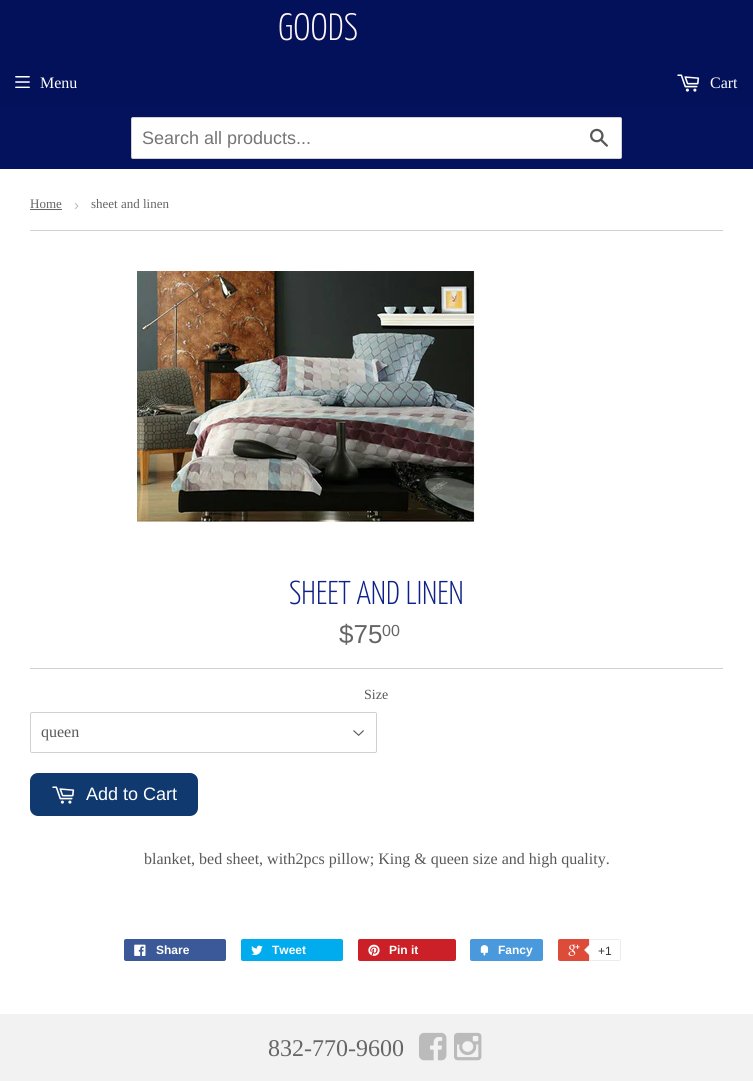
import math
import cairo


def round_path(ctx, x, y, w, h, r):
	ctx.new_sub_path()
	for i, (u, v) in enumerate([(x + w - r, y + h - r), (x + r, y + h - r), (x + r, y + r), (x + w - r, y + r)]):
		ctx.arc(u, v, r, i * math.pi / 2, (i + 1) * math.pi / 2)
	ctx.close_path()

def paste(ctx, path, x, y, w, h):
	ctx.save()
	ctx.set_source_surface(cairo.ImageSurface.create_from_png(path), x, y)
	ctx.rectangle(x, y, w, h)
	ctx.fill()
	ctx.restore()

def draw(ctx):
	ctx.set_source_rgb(1, 1, 1)
	ctx.paint()
	ctx.set_source_rgb(0.008, 0.067, 0.349)
	ctx.rectangle(0, 0, 753, 107)
	ctx.fill()
	ctx.select_font_face('Yanone Kaffeesatz Light')
	ctx.set_font_size(38)
	ctx.set_source_rgb(1, 0.957, 0.957)
	ctx.move_to(278, 40)
	ctx.show_text('GOODS')
	paste(ctx, 'media/1.png', 15, 76, 15, 12)
	ctx.select_font_face('Liberation Serif')
	ctx.set_font_size(16)
	ctx.set_source_rgb(1, 1, 1)
	ctx.move_to(40, 88)
	ctx.show_text('Menu')
	paste(ctx, 'media/2.png', 677, 74, 23, 18)
	ctx.move_to(710, 88)
	ctx.show_text('Cart')
	ctx.set_source_rgb(0.016, 0.067, 0.365)
	ctx.rectangle(0, 107, 753, 62)
	ctx.fill()
	ctx.set_source_rgb(1, 1, 1)
	round_path(ctx, 131.5, 117.5, 490, 41, 1.5)
	ctx.fill_preserve()
	ctx.set_source_rgb(0.82, 0.812, 0.812)
	ctx.set_line_width(1)
	ctx.stroke()
	ctx.select_font_face('Liberation Sans')
	ctx.set_font_size(18)
	ctx.set_source_rgb(0.459, 0.459, 0.459)
	ctx.move_to(142, 144)
	ctx.show_text('Search all products...')
	paste(ctx, 'media/3.png', 590, 128, 18, 19)
	ctx.set_source_rgb(0.82, 0.812, 0.812)
	ctx.rectangle(30, 230, 693, 1)
	ctx.fill()
	ctx.select_font_face('Liberation Serif')
	ctx.set_font_size(13)
	ctx.set_source_rgb(0.4, 0.4, 0.4)
	ctx.move_to(30, 208)
	ctx.show_text('Home')
	ctx.rectangle(30, 209, 32, 1)
	ctx.fill()
	ctx.select_font_face('Liberation Sans')
	ctx.set_font_size(15)
	ctx.set_source_rgb(0.733, 0.733, 0.733)
	ctx.move_to(74, 210)
	ctx.show_text('›')
	ctx.select_font_face('Liberation Serif')
	ctx.set_font_size(13)
	ctx.set_source_rgb(0.4, 0.4, 0.4)
	ctx.move_to(91, 208)
	ctx.show_text('sheet and linen')
	paste(ctx, 'media/4.png', 137, 271, 340, 253)
	ctx.select_font_face('Yanone Kaffeesatz Light')
	ctx.set_font_size(33)
	ctx.set_source_rgb(0.059, 0.129, 0.533)
	ctx.move_to(289, 604)
	ctx.show_text('SHEET AND LINEN')
	ctx.select_font_face('Liberation Sans')
	ctx.set_font_size(26)
	ctx.set_source_rgb(0.4, 0.4, 0.4)
	ctx.move_to(339, 643)
	ctx.show_text('$75')
	ctx.set_font_size(16)
	ctx.move_to(382, 636)
	ctx.show_text('00')
	ctx.set_source_rgb(0.82, 0.812, 0.812)
	ctx.rectangle(30, 668, 693, 1)
	ctx.fill()
	ctx.select_font_face('Liberation Serif')
	ctx.set_font_size(14)
	ctx.set_source_rgb(0.345, 0.345, 0.345)
	ctx.move_to(364, 699)
	ctx.show_text('Size')
	paste(ctx, 'media/5.png', 353, 730, 11, 6)
	round_path(ctx, 30.5, 712.5, 346, 40, 1.5)
	ctx.set_source_rgb(0.82, 0.812, 0.812)
	ctx.stroke()
	ctx.set_font_size(16)
	ctx.set_source_rgb(0.345, 0.345, 0.345)
	ctx.move_to(41, 737)
	ctx.show_text('queen')
	ctx.set_source_rgb(0.059, 0.224, 0.435)
	round_path(ctx, 30, 773, 168, 43, 8)
	ctx.fill()
	paste(ctx, 'media/6.png', 52, 786, 23, 18)
	ctx.select_font_face('Liberation Sans')
	ctx.set_font_size(18)
	ctx.set_source_rgb(1, 1, 1)
	ctx.move_to(86, 800)
	ctx.show_text('Add to Cart')
	ctx.select_font_face('Liberation Serif')
	ctx.set_font_size(16)
	ctx.set_source_rgb(0.345, 0.345, 0.345)
	ctx.move_to(144, 864)
	ctx.show_text('blanket, bed sheet, with2pcs pillow; King & queen size and high quality.')
	ctx.set_source_rgb(0.231, 0.349, 0.596)
	round_path(ctx, 124, 939, 102, 22, 2)
	ctx.fill()
	paste(ctx, 'media/7.png', 134, 944, 12, 12)
	ctx.select_font_face('Liberation Sans', cairo.FONT_SLANT_NORMAL, cairo.FONT_WEIGHT_BOLD)
	ctx.set_font_size(12)
	ctx.set_source_rgb(1, 1, 1)
	ctx.move_to(156, 954)
	ctx.show_text('Share')
	ctx.set_source_rgb(0, 0.675, 0.929)
	round_path(ctx, 241, 939, 102, 22, 2)
	ctx.fill()
	paste(ctx, 'media/8.png', 251, 945, 12, 10)
	ctx.set_source_rgb(1, 1, 1)
	ctx.move_to(272, 954)
	ctx.show_text('Tweet')
	ctx.set_source_rgb(0.796, 0.125, 0.153)
	round_path(ctx, 358, 939, 98, 22, 2)
	ctx.fill()
	paste(ctx, 'media/9.png', 368, 944, 12, 12)
	ctx.set_source_rgb(1, 1, 1)
	ctx.move_to(389, 954)
	ctx.show_text('Pin it')
	ctx.set_source_rgb(0.286, 0.6, 0.863)
	round_path(ctx, 470, 939, 73, 22, 2)
	ctx.fill()
	paste(ctx, 'media/10.png', 480, 945, 9, 11)
	ctx.set_source_rgb(1, 1, 1)
	ctx.move_to(498, 954)
	ctx.show_text('Fancy')
	ctx.set_source_rgb(0.867, 0.294, 0.224)
	round_path(ctx, 558, 939, 61, 22, 2)
	ctx.fill()
	paste(ctx, 'media/11.png', 568, 944, 12, 12)
	ctx.set_source_rgb(1, 1, 1)
	ctx.new_path()
	ctx.move_to(589.5, 939.5)
	ctx.line_to(619, 939.5)
	ctx.curve_to(620, 939.5, 620.5, 940, 620.5, 941)
	ctx.line_to(620.5, 959)
	ctx.curve_to(620.5, 960, 620, 960.5, 619, 960.5)
	ctx.line_to(589.5, 960.5)
	ctx.close_path()
	ctx.fill_preserve()
	ctx.set_source_rgb(0.925, 0.925, 0.925)
	ctx.stroke()
	ctx.new_path()
	ctx.move_to(590, 944)
	ctx.line_to(590, 956)
	ctx.line_to(584, 950)
	ctx.close_path()
	ctx.fill()
	ctx.set_source_rgb(1, 1, 1)
	ctx.new_path()
	ctx.move_to(591, 944)
	ctx.line_to(591, 956)
	ctx.line_to(585, 950)
	ctx.close_path()
	ctx.fill()
	ctx.select_font_face('Liberation Sans')
	ctx.set_source_rgb(0.2, 0.2, 0.2)
	ctx.move_to(598, 955)
	ctx.show_text('+1')
	ctx.set_source_rgb(0.949, 0.949, 0.949)
	ctx.rectangle(0, 1014, 753, 67)
	ctx.fill()
	ctx.select_font_face('Liberation Serif')
	ctx.set_font_size(24)
	ctx.set_source_rgb(0.4, 0.4, 0.4)
	ctx.move_to(268, 1056)
	ctx.show_text('832-770-9600')
	paste(ctx, 'media/12.png', 419, 1032, 28, 29)
	paste(ctx, 'media/13.png', 454, 1032, 28, 29)


surface = cairo.ImageSurface(cairo.FORMAT_RGB24, 753, 1081)
ctx = cairo.Context(surface)
options = cairo.FontOptions()
options.set_hint_metrics(cairo.HINT_METRICS_OFF)
options.set_hint_style(cairo.HINT_STYLE_NONE)
ctx.set_font_options(options)
ctx.set_miter_limit(4)
draw(ctx)
surface.write_to_png('image.png')
